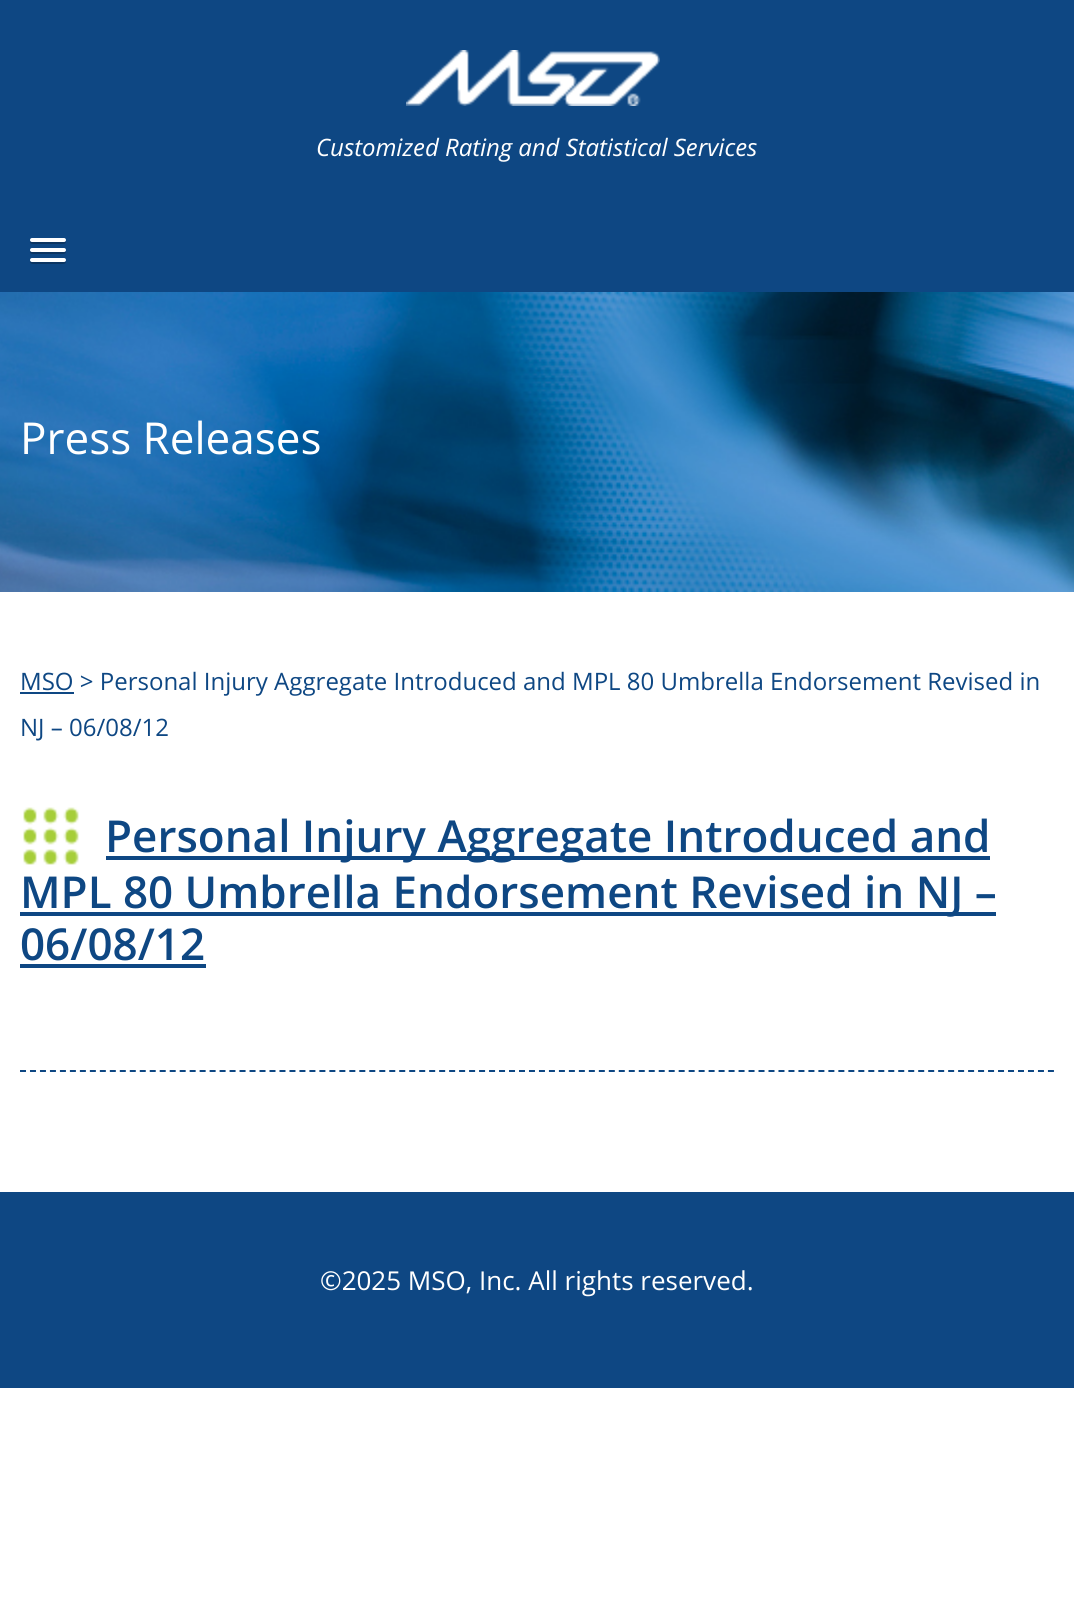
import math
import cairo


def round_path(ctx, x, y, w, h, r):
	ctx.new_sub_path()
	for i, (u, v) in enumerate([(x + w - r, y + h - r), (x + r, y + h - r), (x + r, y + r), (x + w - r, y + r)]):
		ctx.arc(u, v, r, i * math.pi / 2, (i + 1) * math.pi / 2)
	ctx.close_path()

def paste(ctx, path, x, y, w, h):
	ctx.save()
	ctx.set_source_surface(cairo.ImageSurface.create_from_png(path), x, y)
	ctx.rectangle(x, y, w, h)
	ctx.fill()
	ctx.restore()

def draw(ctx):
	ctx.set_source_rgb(1, 1, 1)
	ctx.paint()
	ctx.set_source_rgb(0.055, 0.278, 0.514)
	ctx.rectangle(0, 0, 1074, 292)
	ctx.fill()
	paste(ctx, 'media/1.png', 406, 50, 254, 56)
	ctx.select_font_face('Open Sans', cairo.FONT_SLANT_ITALIC)
	ctx.set_font_size(24)
	ctx.set_source_rgb(1, 1, 1)
	ctx.move_to(316, 156)
	ctx.show_text('Customized Rating and Statistical Services')
	ctx.set_source_rgb(0.043, 0.208, 0.384)
	ctx.new_path()
	ctx.move_to(30.5, 241)
	ctx.curve_to(28, 245, 37, 244, 37.5, 244)
	ctx.line_to(58.5, 244)
	ctx.curve_to(59, 244, 68, 245, 65.5, 241)
	ctx.curve_to(65.5, 241.5, 64.5, 242, 64, 242)
	ctx.line_to(32, 242)
	ctx.curve_to(31.5, 242, 30.5, 241.5, 30.5, 241)
	ctx.close_path()
	ctx.fill()
	ctx.set_source_rgb(1, 1, 1)
	round_path(ctx, 30, 238, 36, 4, 2)
	ctx.fill()
	ctx.set_source_rgb(0.043, 0.208, 0.384)
	ctx.new_path()
	ctx.move_to(30.5, 251)
	ctx.curve_to(28, 255, 37, 254, 37.5, 254)
	ctx.line_to(58.5, 254)
	ctx.curve_to(59, 254, 68, 255, 65.5, 251)
	ctx.curve_to(65.5, 251.5, 64.5, 252, 64, 252)
	ctx.line_to(32, 252)
	ctx.curve_to(31.5, 252, 30.5, 251.5, 30.5, 251)
	ctx.close_path()
	ctx.fill()
	ctx.set_source_rgb(1, 1, 1)
	round_path(ctx, 30, 248, 36, 4, 2)
	ctx.fill()
	ctx.set_source_rgb(0.043, 0.208, 0.384)
	ctx.new_path()
	ctx.move_to(30.5, 261)
	ctx.curve_to(28, 265, 37, 264, 37.5, 264)
	ctx.line_to(58.5, 264)
	ctx.curve_to(59, 264, 68, 265, 65.5, 261)
	ctx.curve_to(65.5, 261.5, 64.5, 262, 64, 262)
	ctx.line_to(32, 262)
	ctx.curve_to(31.5, 262, 30.5, 261.5, 30.5, 261)
	ctx.close_path()
	ctx.fill()
	ctx.set_source_rgb(1, 1, 1)
	round_path(ctx, 30, 258, 36, 4, 2)
	ctx.fill()
	paste(ctx, 'media/2.png', 0, 292, 1074, 300)
	ctx.select_font_face('Open Sans')
	ctx.set_font_size(44)
	ctx.move_to(20, 454)
	ctx.show_text('Press Releases')
	ctx.set_source_rgb(0.055, 0.278, 0.514)
	ctx.rectangle(20, 692, 54, 2)
	ctx.fill()
	ctx.set_font_size(24)
	ctx.move_to(20, 690)
	ctx.show_text('MSO > Personal Injury Aggregate Introduced and MPL 80 Umbrella Endorsement Revised in')
	ctx.move_to(20, 736)
	ctx.show_text('NJ – 06/08/12')
	paste(ctx, 'media/3.png', 23, 807, 56, 58)
	ctx.rectangle(106, 856, 884, 4)
	ctx.fill()
	ctx.select_font_face('Open Sans SemiBold')
	ctx.set_font_size(44)
	ctx.move_to(105, 852)
	ctx.show_text('Personal Injury Aggregate Introduced and')
	ctx.rectangle(20, 912, 976, 4)
	ctx.fill()
	ctx.move_to(20, 908)
	ctx.show_text('MPL 80 Umbrella Endorsement Revised in NJ –')
	ctx.move_to(20, 960)
	ctx.show_text('06/08/12')
	ctx.rectangle(20, 964, 186, 4)
	ctx.fill()
	ctx.new_path()
	ctx.move_to(20, 1071)
	ctx.line_to(1054, 1071)
	ctx.set_dash([6, 3.98])
	ctx.stroke()
	ctx.rectangle(0, 1192, 1074, 196)
	ctx.fill()
	ctx.select_font_face('Open Sans')
	ctx.set_font_size(26)
	ctx.set_source_rgb(1, 1, 1)
	ctx.move_to(320, 1290)
	ctx.show_text('©2025 MSO, Inc. All rights reserved.')


surface = cairo.ImageSurface(cairo.FORMAT_RGB24, 1074, 1606)
ctx = cairo.Context(surface)
options = cairo.FontOptions()
options.set_hint_metrics(cairo.HINT_METRICS_OFF)
options.set_hint_style(cairo.HINT_STYLE_NONE)
ctx.set_font_options(options)
ctx.set_miter_limit(4)
draw(ctx)
surface.write_to_png('image.png')
